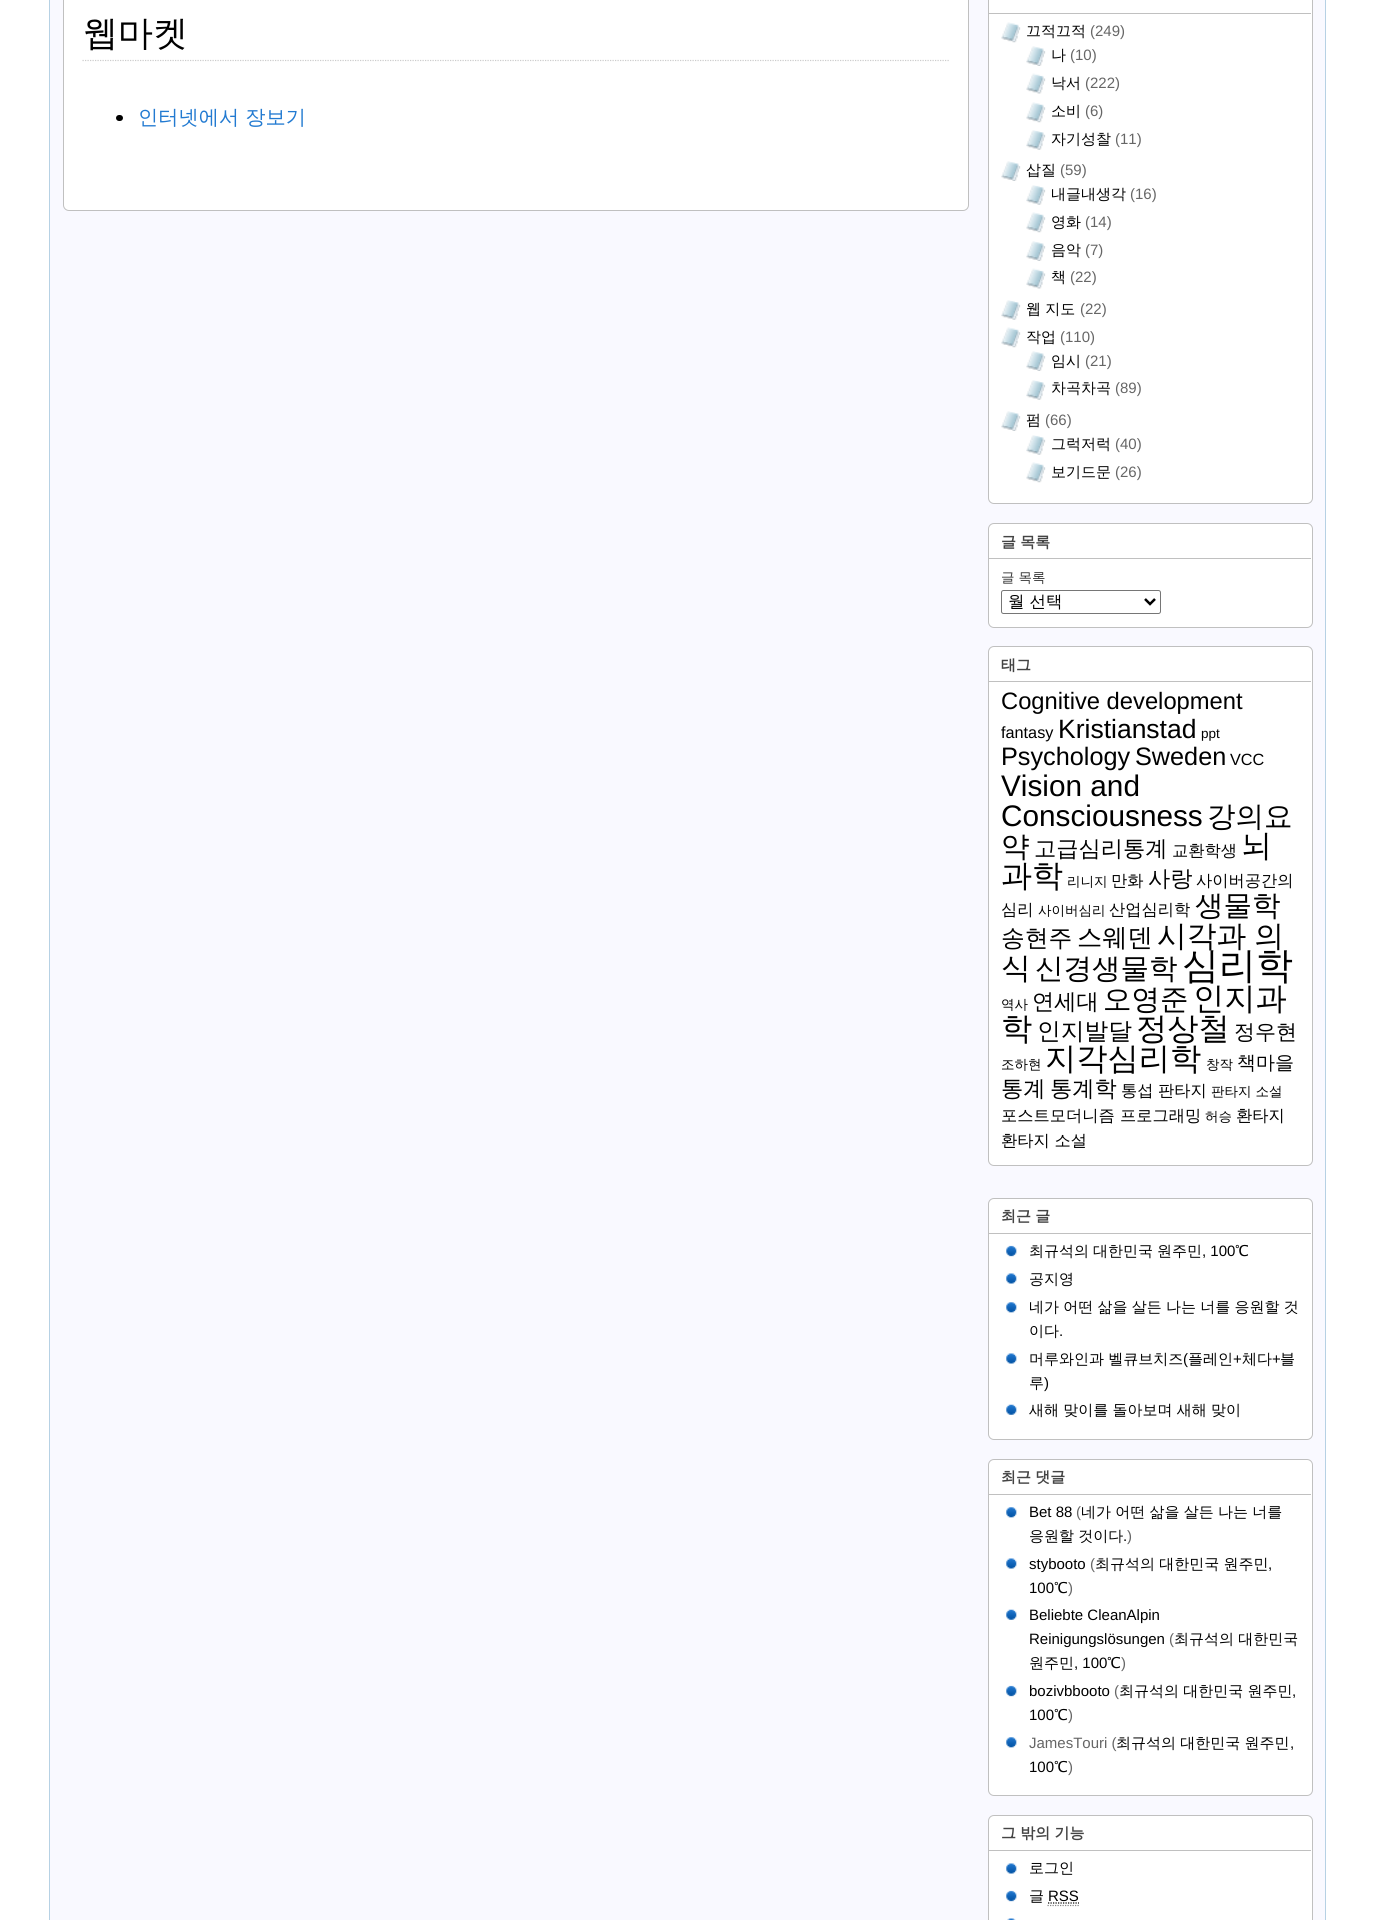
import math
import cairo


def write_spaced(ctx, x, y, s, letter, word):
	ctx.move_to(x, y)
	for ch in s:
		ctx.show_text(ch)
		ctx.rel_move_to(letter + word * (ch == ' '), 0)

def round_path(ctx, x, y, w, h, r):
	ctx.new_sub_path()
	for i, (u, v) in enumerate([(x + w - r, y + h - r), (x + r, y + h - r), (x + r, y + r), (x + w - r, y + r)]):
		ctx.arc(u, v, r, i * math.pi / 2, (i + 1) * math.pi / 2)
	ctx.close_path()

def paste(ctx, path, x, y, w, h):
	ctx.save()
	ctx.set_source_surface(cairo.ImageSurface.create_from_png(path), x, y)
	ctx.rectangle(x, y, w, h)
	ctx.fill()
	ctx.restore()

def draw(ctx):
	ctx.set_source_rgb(1, 1, 1)
	ctx.paint()
	ctx.set_source_rgb(0.973, 0.973, 1)
	ctx.rectangle(49.5, -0.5, 1276, 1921)
	ctx.fill_preserve()
	ctx.set_source_rgb(0.714, 0.82, 0.894)
	ctx.set_line_width(1)
	ctx.stroke()
	ctx.set_source_rgb(1, 1, 1)
	round_path(ctx, 63.5, -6.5, 905, 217, 5.5)
	ctx.fill_preserve()
	ctx.set_source_rgb(0.753, 0.753, 0.753)
	ctx.stroke()
	ctx.new_path()
	ctx.move_to(82.5, 60.5)
	ctx.line_to(949, 60.5)
	ctx.set_source_rgb(0.8, 0.8, 0.8)
	ctx.set_line_width(1.2)
	ctx.set_dash([1.25, 1.25])
	ctx.stroke()
	ctx.select_font_face('WenQuanYi Zen Hei Medium')
	ctx.set_font_size(35)
	ctx.set_source_rgb(0, 0, 0)
	ctx.move_to(83, 45)
	ctx.show_text('웹마켓')
	round_path(ctx, 116, 115, 7, 6, 3)
	ctx.fill()
	ctx.set_font_size(20.25)
	ctx.set_source_rgb(0.133, 0.478, 0.82)
	ctx.move_to(138, 124)
	ctx.show_text('인터넷에서 장보기')
	ctx.set_source_rgb(1, 1, 1)
	round_path(ctx, 988.5, -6.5, 324, 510, 5.5)
	ctx.fill_preserve()
	ctx.set_source_rgb(0.753, 0.753, 0.753)
	ctx.set_line_width(1)
	ctx.set_dash([])
	ctx.stroke()
	ctx.rectangle(989, 13, 322, 1)
	ctx.fill()
	paste(ctx, 'media/1.png', 1001, 22, 20, 21)
	ctx.set_font_size(15)
	ctx.set_source_rgb(0, 0, 0)
	ctx.move_to(1026, 36)
	ctx.show_text('끄적끄적')
	ctx.select_font_face('Liberation Sans')
	ctx.set_source_rgb(0.4, 0.4, 0.4)
	ctx.move_to(1090, 36)
	ctx.show_text('(249)')
	paste(ctx, 'media/2.png', 1026, 46, 20, 20)
	ctx.select_font_face('WenQuanYi Zen Hei Medium')
	ctx.set_source_rgb(0, 0, 0)
	ctx.move_to(1051, 60)
	ctx.show_text('나')
	ctx.select_font_face('Liberation Sans')
	ctx.set_source_rgb(0.4, 0.4, 0.4)
	ctx.move_to(1070, 60)
	ctx.show_text('(10)')
	paste(ctx, 'media/3.png', 1026, 73, 20, 21)
	ctx.select_font_face('WenQuanYi Zen Hei Medium')
	ctx.set_source_rgb(0, 0, 0)
	ctx.move_to(1051, 88)
	ctx.show_text('낙서')
	ctx.select_font_face('Liberation Sans')
	ctx.set_source_rgb(0.4, 0.4, 0.4)
	ctx.move_to(1085, 88)
	ctx.show_text('(222)')
	paste(ctx, 'media/4.png', 1026, 102, 20, 21)
	ctx.select_font_face('WenQuanYi Zen Hei Medium')
	ctx.set_source_rgb(0, 0, 0)
	ctx.move_to(1051, 116)
	ctx.show_text('소비')
	ctx.select_font_face('Liberation Sans')
	ctx.set_source_rgb(0.4, 0.4, 0.4)
	ctx.move_to(1085, 116)
	ctx.show_text('(6)')
	paste(ctx, 'media/5.png', 1026, 130, 20, 20)
	ctx.select_font_face('WenQuanYi Zen Hei Medium')
	ctx.set_source_rgb(0, 0, 0)
	ctx.move_to(1051, 144)
	ctx.show_text('자기성찰')
	ctx.select_font_face('Liberation Sans')
	ctx.set_source_rgb(0.4, 0.4, 0.4)
	ctx.move_to(1115, 144)
	ctx.show_text('(11)')
	paste(ctx, 'media/6.png', 1001, 161, 20, 20)
	ctx.select_font_face('WenQuanYi Zen Hei Medium')
	ctx.set_source_rgb(0, 0, 0)
	ctx.move_to(1026, 175)
	ctx.show_text('삽질')
	ctx.select_font_face('Liberation Sans')
	ctx.set_source_rgb(0.4, 0.4, 0.4)
	ctx.move_to(1060, 175)
	ctx.show_text('(59)')
	paste(ctx, 'media/5.png', 1026, 185, 20, 20)
	ctx.select_font_face('WenQuanYi Zen Hei Medium')
	ctx.set_source_rgb(0, 0, 0)
	ctx.move_to(1051, 199)
	ctx.show_text('내글내생각')
	ctx.select_font_face('Liberation Sans')
	ctx.set_source_rgb(0.4, 0.4, 0.4)
	ctx.move_to(1130, 199)
	ctx.show_text('(16)')
	paste(ctx, 'media/4.png', 1026, 212, 20, 21)
	ctx.select_font_face('WenQuanYi Zen Hei Medium')
	ctx.set_source_rgb(0, 0, 0)
	ctx.move_to(1051, 227)
	ctx.show_text('영화')
	ctx.select_font_face('Liberation Sans')
	ctx.set_source_rgb(0.4, 0.4, 0.4)
	ctx.move_to(1085, 227)
	ctx.show_text('(14)')
	paste(ctx, 'media/2.png', 1026, 241, 20, 20)
	ctx.select_font_face('WenQuanYi Zen Hei Medium')
	ctx.set_source_rgb(0, 0, 0)
	ctx.move_to(1051, 255)
	ctx.show_text('음악')
	ctx.select_font_face('Liberation Sans')
	ctx.set_source_rgb(0.4, 0.4, 0.4)
	ctx.move_to(1085, 255)
	ctx.show_text('(7)')
	paste(ctx, 'media/3.png', 1026, 268, 20, 21)
	ctx.select_font_face('WenQuanYi Zen Hei Medium')
	ctx.set_source_rgb(0, 0, 0)
	ctx.move_to(1051, 282)
	ctx.show_text('책')
	ctx.select_font_face('Liberation Sans')
	ctx.set_source_rgb(0.4, 0.4, 0.4)
	ctx.move_to(1070, 282)
	ctx.show_text('(22)')
	paste(ctx, 'media/7.png', 1001, 300, 20, 20)
	ctx.select_font_face('WenQuanYi Zen Hei Medium')
	ctx.set_source_rgb(0, 0, 0)
	write_spaced(ctx, 1026, 314, '웹 지도', 0, -0.25)
	ctx.select_font_face('Liberation Sans')
	ctx.set_source_rgb(0.4, 0.4, 0.4)
	ctx.move_to(1080, 314)
	ctx.show_text('(22)')
	paste(ctx, 'media/1.png', 1001, 327, 20, 21)
	ctx.select_font_face('WenQuanYi Zen Hei Medium')
	ctx.set_source_rgb(0, 0, 0)
	ctx.move_to(1026, 342)
	ctx.show_text('작업')
	ctx.select_font_face('Liberation Sans')
	ctx.set_source_rgb(0.4, 0.4, 0.4)
	ctx.move_to(1060, 342)
	ctx.show_text('(110)')
	paste(ctx, 'media/8.png', 1026, 351, 20, 20)
	ctx.select_font_face('WenQuanYi Zen Hei Medium')
	ctx.set_source_rgb(0, 0, 0)
	ctx.move_to(1051, 366)
	ctx.show_text('임시')
	ctx.select_font_face('Liberation Sans')
	ctx.set_source_rgb(0.4, 0.4, 0.4)
	ctx.move_to(1085, 366)
	ctx.show_text('(21)')
	paste(ctx, 'media/5.png', 1026, 380, 20, 20)
	ctx.select_font_face('WenQuanYi Zen Hei Medium')
	ctx.set_source_rgb(0, 0, 0)
	ctx.move_to(1051, 393)
	ctx.show_text('차곡차곡')
	ctx.select_font_face('Liberation Sans')
	ctx.set_source_rgb(0.4, 0.4, 0.4)
	ctx.move_to(1115, 393)
	ctx.show_text('(89)')
	paste(ctx, 'media/6.png', 1001, 411, 20, 20)
	ctx.select_font_face('WenQuanYi Zen Hei Medium')
	ctx.set_source_rgb(0, 0, 0)
	ctx.move_to(1026, 425)
	ctx.show_text('펌')
	ctx.select_font_face('Liberation Sans')
	ctx.set_source_rgb(0.4, 0.4, 0.4)
	ctx.move_to(1045, 425)
	ctx.show_text('(66)')
	paste(ctx, 'media/5.png', 1026, 435, 20, 20)
	ctx.select_font_face('WenQuanYi Zen Hei Medium')
	ctx.set_source_rgb(0, 0, 0)
	ctx.move_to(1051, 449)
	ctx.show_text('그럭저럭')
	ctx.select_font_face('Liberation Sans')
	ctx.set_source_rgb(0.4, 0.4, 0.4)
	ctx.move_to(1115, 449)
	ctx.show_text('(40)')
	paste(ctx, 'media/4.png', 1026, 462, 20, 21)
	ctx.select_font_face('WenQuanYi Zen Hei Medium')
	ctx.set_source_rgb(0, 0, 0)
	ctx.move_to(1051, 477)
	ctx.show_text('보기드문')
	ctx.select_font_face('Liberation Sans')
	ctx.set_source_rgb(0.4, 0.4, 0.4)
	ctx.move_to(1115, 477)
	ctx.show_text('(26)')
	ctx.set_source_rgb(1, 1, 1)
	round_path(ctx, 988.5, 523.5, 324, 104, 5.5)
	ctx.fill_preserve()
	ctx.set_source_rgb(0.753, 0.753, 0.753)
	ctx.stroke()
	ctx.rectangle(989, 558, 322, 1)
	ctx.fill()
	ctx.select_font_face('WenQuanYi Zen Hei', cairo.FONT_SLANT_NORMAL, cairo.FONT_WEIGHT_BOLD)
	ctx.set_source_rgb(0.267, 0.267, 0.267)
	write_spaced(ctx, 1001, 547, '글 목록', 0, -0.25)
	ctx.select_font_face('WenQuanYi Zen Hei Medium')
	ctx.set_font_size(13.5)
	ctx.set_source_rgb(0.2, 0.2, 0.2)
	ctx.move_to(1001, 582)
	ctx.show_text('글 목록')
	round_path(ctx, 1001.5, 590.5, 159, 23, 2)
	ctx.set_source_rgb(0.463, 0.463, 0.463)
	ctx.stroke()
	ctx.new_path()
	ctx.move_to(1145, 599)
	ctx.line_to(1150, 604)
	ctx.line_to(1155, 599)
	ctx.set_source_rgb(0, 0, 0)
	ctx.set_line_width(2.5)
	ctx.stroke()
	ctx.set_font_size(16.5)
	ctx.move_to(1008, 607)
	ctx.show_text('월 선택')
	ctx.set_source_rgb(1, 1, 1)
	round_path(ctx, 988.5, 646.5, 324, 519, 5.5)
	ctx.fill_preserve()
	ctx.set_source_rgb(0.753, 0.753, 0.753)
	ctx.set_line_width(1)
	ctx.stroke()
	ctx.rectangle(989, 681, 322, 1)
	ctx.fill()
	ctx.select_font_face('WenQuanYi Zen Hei', cairo.FONT_SLANT_NORMAL, cairo.FONT_WEIGHT_BOLD)
	ctx.set_font_size(15)
	ctx.set_source_rgb(0.267, 0.267, 0.267)
	ctx.move_to(1001, 670)
	ctx.show_text('태그')
	ctx.select_font_face('Liberation Sans')
	ctx.set_font_size(23.75)
	ctx.set_source_rgb(0, 0, 0)
	ctx.move_to(1001, 709)
	ctx.show_text('Cognitive development')
	ctx.set_font_size(16.25)
	ctx.move_to(1001, 738)
	ctx.show_text('fantasy')
	ctx.set_font_size(26.5)
	ctx.move_to(1058, 738)
	ctx.show_text('Kristianstad')
	ctx.set_font_size(13.5)
	ctx.move_to(1201, 738)
	ctx.show_text('ppt')
	ctx.set_font_size(25.25)
	ctx.move_to(1001, 765)
	ctx.show_text('Psychology')
	ctx.move_to(1135, 765)
	ctx.show_text('Sweden')
	ctx.set_font_size(16.25)
	ctx.move_to(1230, 765)
	ctx.show_text('VCC')
	ctx.set_font_size(29.75)
	ctx.move_to(1001, 796)
	ctx.show_text('Vision and')
	ctx.move_to(1001, 826)
	ctx.show_text('Consciousness')
	ctx.select_font_face('WenQuanYi Zen Hei Medium')
	ctx.set_font_size(28.5)
	ctx.move_to(1207, 826)
	ctx.show_text('강의요')
	ctx.move_to(1001, 856)
	ctx.show_text('약')
	ctx.set_font_size(22.25)
	ctx.move_to(1034, 856)
	ctx.show_text('고급심리통계')
	ctx.set_font_size(16.25)
	ctx.move_to(1172, 856)
	ctx.show_text('교환학생')
	ctx.set_font_size(31)
	ctx.move_to(1241, 856)
	ctx.show_text('뇌')
	ctx.move_to(1001, 886)
	ctx.show_text('과학')
	ctx.set_font_size(13.5)
	ctx.move_to(1067, 886)
	ctx.show_text('리니지')
	ctx.set_font_size(16.25)
	ctx.move_to(1111, 886)
	ctx.show_text('만화')
	ctx.set_font_size(22.25)
	ctx.move_to(1148, 886)
	ctx.show_text('사랑')
	ctx.set_font_size(16.25)
	ctx.move_to(1196, 886)
	ctx.show_text('사이버공간의')
	ctx.move_to(1001, 915)
	ctx.show_text('심리')
	ctx.set_font_size(13.5)
	ctx.move_to(1038, 915)
	ctx.show_text('사이버심리')
	ctx.set_font_size(16.25)
	ctx.move_to(1109, 915)
	ctx.show_text('산업심리학')
	ctx.set_font_size(28.5)
	ctx.move_to(1195, 915)
	ctx.show_text('생물학')
	ctx.set_font_size(23.75)
	ctx.move_to(1001, 946)
	ctx.show_text('송현주')
	ctx.set_font_size(25.25)
	ctx.move_to(1077, 946)
	ctx.show_text('스웨덴')
	ctx.set_font_size(29.75)
	write_spaced(ctx, 1157, 946, '시각과 의', 0, -1)
	ctx.move_to(1001, 978)
	ctx.show_text('식')
	ctx.set_font_size(28.5)
	ctx.move_to(1035, 978)
	ctx.show_text('신경생물학')
	ctx.set_font_size(37)
	ctx.move_to(1182, 978)
	ctx.show_text('심리학')
	ctx.set_font_size(13.5)
	ctx.move_to(1001, 1009)
	ctx.show_text('역사')
	ctx.set_font_size(22.25)
	ctx.move_to(1032, 1009)
	ctx.show_text('연세대')
	ctx.set_font_size(28.5)
	ctx.move_to(1103, 1009)
	ctx.show_text('오영준')
	ctx.set_font_size(31.25)
	ctx.move_to(1193, 1009)
	ctx.show_text('인지과')
	ctx.move_to(1001, 1039)
	ctx.show_text('학')
	ctx.set_font_size(23.75)
	ctx.move_to(1037, 1039)
	ctx.show_text('인지발달')
	ctx.set_font_size(31.25)
	ctx.move_to(1136, 1039)
	ctx.show_text('정상철')
	ctx.set_font_size(21)
	ctx.move_to(1234, 1039)
	ctx.show_text('정우현')
	ctx.set_font_size(13.5)
	ctx.move_to(1001, 1069)
	ctx.show_text('조하현')
	ctx.set_font_size(31.25)
	ctx.move_to(1045, 1069)
	ctx.show_text('지각심리학')
	ctx.set_font_size(13.5)
	ctx.move_to(1206, 1069)
	ctx.show_text('창작')
	ctx.set_font_size(19)
	ctx.move_to(1237, 1069)
	ctx.show_text('책마을')
	ctx.set_font_size(22.25)
	ctx.move_to(1001, 1096)
	ctx.show_text('통계')
	ctx.move_to(1050, 1096)
	ctx.show_text('통계학')
	ctx.set_font_size(16.25)
	ctx.move_to(1121, 1096)
	ctx.show_text('통섭')
	ctx.move_to(1158, 1096)
	ctx.show_text('판타지')
	ctx.set_font_size(13.5)
	ctx.move_to(1211, 1096)
	ctx.show_text('판타지 소설')
	ctx.set_font_size(16.25)
	ctx.move_to(1001, 1121)
	ctx.show_text('포스트모더니즘')
	ctx.move_to(1120, 1121)
	ctx.show_text('프로그래밍')
	ctx.set_font_size(13.5)
	ctx.move_to(1205, 1121)
	ctx.show_text('허승')
	ctx.set_font_size(16.25)
	ctx.move_to(1236, 1121)
	ctx.show_text('환타지')
	ctx.move_to(1001, 1146)
	ctx.show_text('환타지 소설')
	ctx.set_source_rgb(1, 1, 1)
	round_path(ctx, 988.5, 1198.5, 324, 241, 5.5)
	ctx.fill_preserve()
	ctx.set_source_rgb(0.753, 0.753, 0.753)
	ctx.stroke()
	ctx.rectangle(989, 1233, 322, 1)
	ctx.fill()
	ctx.select_font_face('WenQuanYi Zen Hei', cairo.FONT_SLANT_NORMAL, cairo.FONT_WEIGHT_BOLD)
	ctx.set_font_size(15)
	ctx.set_source_rgb(0.267, 0.267, 0.267)
	write_spaced(ctx, 1001, 1221, '최근 글', 0, -0.25)
	paste(ctx, 'media/9.png', 1006, 1245, 11, 12)
	ctx.select_font_face('WenQuanYi Zen Hei Medium')
	ctx.set_source_rgb(0, 0, 0)
	for x, y, s in [
		(1029, 1256, '최규석의'),
		(1093, 1256, '대한민국'),
		(1157, 1256, '원주민'),
	]:
		ctx.move_to(x, y)
		ctx.show_text(s)
	ctx.select_font_face('Liberation Sans')
	ctx.move_to(1202, 1256)
	ctx.show_text(', 100')
	ctx.select_font_face('WenQuanYi Zen Hei Medium')
	ctx.move_to(1235, 1256)
	ctx.show_text('℃')
	paste(ctx, 'media/10.png', 1006, 1273, 11, 11)
	ctx.move_to(1029, 1284)
	ctx.show_text('공지영')
	paste(ctx, 'media/11.png', 1006, 1302, 11, 11)
	write_spaced(ctx, 1029, 1312, '네가 어떤 삶을 살든 나는 너를 응원할 것', 0, -0.25)
	ctx.move_to(1029, 1336)
	ctx.show_text('이다')
	ctx.select_font_face('Liberation Sans')
	ctx.move_to(1059, 1336)
	ctx.show_text('.')
	paste(ctx, 'media/10.png', 1006, 1353, 11, 11)
	ctx.select_font_face('WenQuanYi Zen Hei Medium')
	write_spaced(ctx, 1029, 1364, '머루와인과 벨큐브치즈', 0, -0.25)
	ctx.select_font_face('Liberation Sans')
	ctx.move_to(1183, 1364)
	ctx.show_text('(')
	ctx.select_font_face('WenQuanYi Zen Hei Medium')
	ctx.move_to(1188, 1364)
	ctx.show_text('플레인')
	ctx.select_font_face('Liberation Sans')
	ctx.move_to(1233, 1364)
	ctx.show_text('+')
	ctx.select_font_face('WenQuanYi Zen Hei Medium')
	ctx.move_to(1242, 1364)
	ctx.show_text('체다')
	ctx.select_font_face('Liberation Sans')
	ctx.move_to(1272, 1364)
	ctx.show_text('+')
	ctx.select_font_face('WenQuanYi Zen Hei Medium')
	ctx.move_to(1280, 1364)
	ctx.show_text('블')
	ctx.move_to(1029, 1388)
	ctx.show_text('루')
	ctx.select_font_face('Liberation Sans')
	ctx.move_to(1044, 1388)
	ctx.show_text(')')
	paste(ctx, 'media/12.png', 1006, 1404, 11, 11)
	ctx.select_font_face('WenQuanYi Zen Hei Medium')
	write_spaced(ctx, 1029, 1415, '새해 맞이를 돌아보며 새해 맞이', 0, -0.25)
	ctx.set_source_rgb(1, 1, 1)
	round_path(ctx, 988.5, 1459.5, 324, 336, 5.5)
	ctx.fill_preserve()
	ctx.set_source_rgb(0.753, 0.753, 0.753)
	ctx.stroke()
	ctx.rectangle(989, 1494, 322, 1)
	ctx.fill()
	ctx.select_font_face('WenQuanYi Zen Hei', cairo.FONT_SLANT_NORMAL, cairo.FONT_WEIGHT_BOLD)
	ctx.set_source_rgb(0.267, 0.267, 0.267)
	write_spaced(ctx, 1001, 1482, '최근 댓글', 0, -0.25)
	paste(ctx, 'media/11.png', 1006, 1507, 11, 11)
	ctx.select_font_face('Liberation Sans')
	ctx.set_source_rgb(0, 0, 0)
	ctx.move_to(1029, 1517)
	ctx.show_text('Bet 88')
	ctx.set_source_rgb(0.4, 0.4, 0.4)
	ctx.move_to(1076, 1517)
	ctx.show_text('(')
	ctx.select_font_face('WenQuanYi Zen Hei Medium')
	ctx.set_source_rgb(0, 0, 0)
	write_spaced(ctx, 1081, 1517, '네가 어떤 삶을 살든 나는 너를', 0, -0.25)
	write_spaced(ctx, 1029, 1541, '응원할 것이다', 0, -0.25)
	ctx.select_font_face('Liberation Sans')
	ctx.move_to(1123, 1541)
	ctx.show_text('.')
	ctx.set_source_rgb(0.4, 0.4, 0.4)
	ctx.move_to(1127, 1541)
	ctx.show_text(')')
	paste(ctx, 'media/10.png', 1006, 1558, 11, 11)
	ctx.set_source_rgb(0, 0, 0)
	ctx.move_to(1029, 1569)
	ctx.show_text('stybooto')
	ctx.set_source_rgb(0.4, 0.4, 0.4)
	ctx.move_to(1090, 1569)
	ctx.show_text('(')
	ctx.select_font_face('WenQuanYi Zen Hei Medium')
	ctx.set_source_rgb(0, 0, 0)
	write_spaced(ctx, 1095, 1569, '최규석의 대한민국 원주민', 0, -0.25)
	ctx.select_font_face('Liberation Sans')
	ctx.move_to(1268, 1569)
	ctx.show_text(',')
	ctx.move_to(1029, 1593)
	ctx.show_text('100')
	ctx.select_font_face('WenQuanYi Zen Hei Medium')
	ctx.move_to(1054, 1593)
	ctx.show_text('℃')
	ctx.select_font_face('Liberation Sans')
	ctx.set_source_rgb(0.4, 0.4, 0.4)
	ctx.move_to(1068, 1593)
	ctx.show_text(')')
	paste(ctx, 'media/12.png', 1006, 1609, 11, 11)
	ctx.set_source_rgb(0, 0, 0)
	ctx.move_to(1029, 1620)
	ctx.show_text('Beliebte CleanAlpin')
	ctx.move_to(1029, 1644)
	ctx.show_text('Reinigungslösungen')
	ctx.set_source_rgb(0.4, 0.4, 0.4)
	ctx.move_to(1169, 1644)
	ctx.show_text('(')
	ctx.select_font_face('WenQuanYi Zen Hei Medium')
	ctx.set_source_rgb(0, 0, 0)
	write_spaced(ctx, 1174, 1644, '최규석의 대한민국', 0, -0.25)
	ctx.move_to(1029, 1668)
	ctx.show_text('원주민')
	ctx.select_font_face('Liberation Sans')
	ctx.move_to(1074, 1668)
	ctx.show_text(', 100')
	ctx.select_font_face('WenQuanYi Zen Hei Medium')
	ctx.move_to(1107, 1668)
	ctx.show_text('℃')
	ctx.select_font_face('Liberation Sans')
	ctx.set_source_rgb(0.4, 0.4, 0.4)
	ctx.move_to(1121, 1668)
	ctx.show_text(')')
	paste(ctx, 'media/9.png', 1006, 1685, 11, 12)
	ctx.set_source_rgb(0, 0, 0)
	ctx.move_to(1029, 1696)
	ctx.show_text('bozivbbooto')
	ctx.set_source_rgb(0.4, 0.4, 0.4)
	ctx.move_to(1114, 1696)
	ctx.show_text('(')
	ctx.select_font_face('WenQuanYi Zen Hei Medium')
	ctx.set_source_rgb(0, 0, 0)
	write_spaced(ctx, 1119, 1696, '최규석의 대한민국 원주민', 0, -0.25)
	ctx.select_font_face('Liberation Sans')
	ctx.move_to(1292, 1696)
	ctx.show_text(',')
	ctx.move_to(1029, 1720)
	ctx.show_text('100')
	ctx.select_font_face('WenQuanYi Zen Hei Medium')
	ctx.move_to(1054, 1720)
	ctx.show_text('℃')
	ctx.select_font_face('Liberation Sans')
	ctx.set_source_rgb(0.4, 0.4, 0.4)
	ctx.move_to(1068, 1720)
	ctx.show_text(')')
	paste(ctx, 'media/11.png', 1006, 1737, 11, 11)
	ctx.move_to(1029, 1748)
	ctx.show_text('JamesTouri (')
	ctx.select_font_face('WenQuanYi Zen Hei Medium')
	ctx.set_source_rgb(0, 0, 0)
	write_spaced(ctx, 1116, 1748, '최규석의 대한민국 원주민', 0, -0.25)
	ctx.select_font_face('Liberation Sans')
	ctx.move_to(1290, 1748)
	ctx.show_text(',')
	ctx.move_to(1029, 1772)
	ctx.show_text('100')
	ctx.select_font_face('WenQuanYi Zen Hei Medium')
	ctx.move_to(1054, 1772)
	ctx.show_text('℃')
	ctx.select_font_face('Liberation Sans')
	ctx.set_source_rgb(0.4, 0.4, 0.4)
	ctx.move_to(1068, 1772)
	ctx.show_text(')')
	ctx.set_source_rgb(1, 1, 1)
	round_path(ctx, 988.5, 1815.5, 324, 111, 5.5)
	ctx.fill_preserve()
	ctx.set_source_rgb(0.753, 0.753, 0.753)
	ctx.stroke()
	ctx.rectangle(989, 1850, 322, 1)
	ctx.fill()
	ctx.select_font_face('WenQuanYi Zen Hei', cairo.FONT_SLANT_NORMAL, cairo.FONT_WEIGHT_BOLD)
	ctx.set_source_rgb(0.267, 0.267, 0.267)
	write_spaced(ctx, 1001, 1838, '그 밖의 기능', 0, -0.25)
	paste(ctx, 'media/10.png', 1006, 1863, 11, 11)
	ctx.select_font_face('WenQuanYi Zen Hei Medium')
	ctx.set_source_rgb(0, 0, 0)
	ctx.move_to(1029, 1873)
	ctx.show_text('로그인')
	paste(ctx, 'media/9.png', 1006, 1890, 11, 12)
	ctx.move_to(1029, 1901)
	ctx.show_text('글')
	ctx.select_font_face('Liberation Sans')
	ctx.move_to(1048, 1901)
	ctx.show_text('RSS')
	ctx.new_path()
	ctx.move_to(1047.5, 1905.5)
	ctx.line_to(1079, 1905.5)
	ctx.set_source_rgb(0.533, 0.533, 0.533)
	ctx.set_line_width(1.2)
	ctx.set_dash([1.25, 1.25])
	ctx.stroke()
	ctx.new_path()
	ctx.move_to(1048, 1903)
	ctx.line_to(1079, 1903)
	ctx.set_source_rgb(0, 0, 0)
	ctx.stroke()
	paste(ctx, 'media/13.png', 1007, 1918, 9, 2)


surface = cairo.ImageSurface(cairo.FORMAT_RGB24, 1374, 1920)
ctx = cairo.Context(surface)
options = cairo.FontOptions()
options.set_hint_metrics(cairo.HINT_METRICS_OFF)
options.set_hint_style(cairo.HINT_STYLE_NONE)
ctx.set_font_options(options)
ctx.set_miter_limit(4)
draw(ctx)
surface.write_to_png('image.png')
